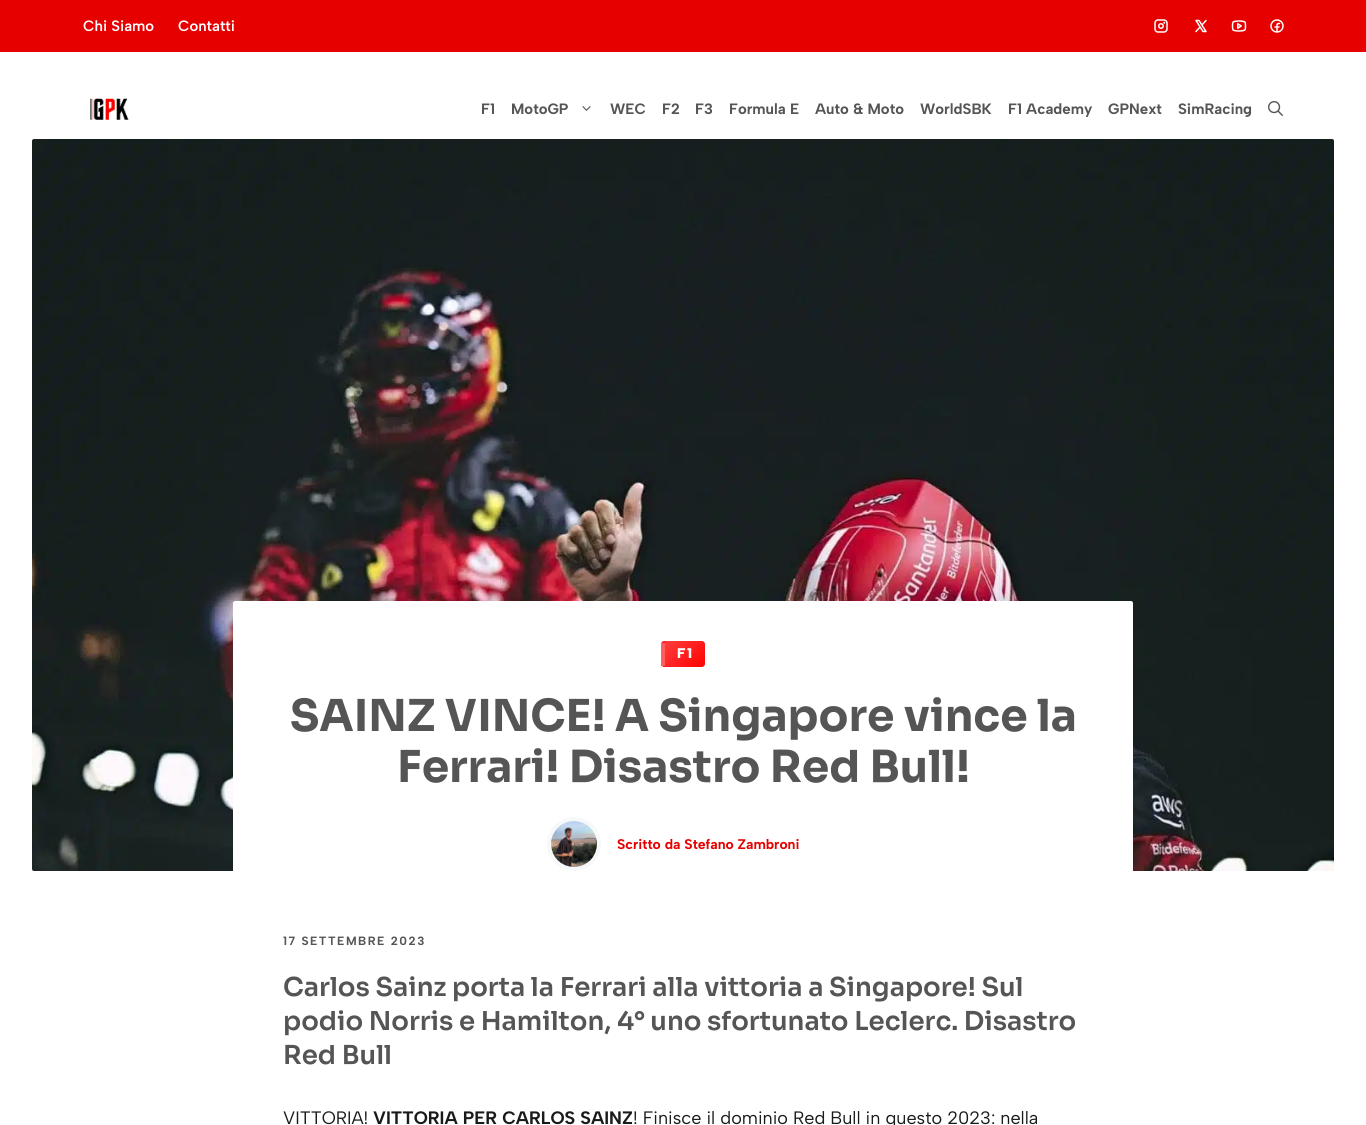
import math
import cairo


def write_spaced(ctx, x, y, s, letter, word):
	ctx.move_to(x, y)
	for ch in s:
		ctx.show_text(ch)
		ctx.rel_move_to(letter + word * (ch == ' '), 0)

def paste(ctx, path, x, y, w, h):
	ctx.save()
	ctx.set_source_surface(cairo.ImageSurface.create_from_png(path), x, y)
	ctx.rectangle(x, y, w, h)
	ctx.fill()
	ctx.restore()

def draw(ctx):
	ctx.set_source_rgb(1, 1, 1)
	ctx.paint()
	ctx.set_source_rgb(0.902, 0, 0)
	ctx.rectangle(0, 0, 1366, 52)
	ctx.fill()
	ctx.select_font_face('Albert Sans SemiBold')
	ctx.set_font_size(15)
	ctx.set_source_rgb(1, 1, 1)
	ctx.move_to(83, 31)
	ctx.show_text('Chi Siamo')
	ctx.move_to(178, 31)
	ctx.show_text('Contatti')
	paste(ctx, 'media/1.png', 1154, 19, 14, 14)
	paste(ctx, 'media/2.png', 1195, 19, 12, 14)
	paste(ctx, 'media/3.png', 1231, 20, 16, 12)
	paste(ctx, 'media/4.png', 1270, 19, 14, 14)
	paste(ctx, 'media/5.png', 90, 98, 39, 22)
	ctx.select_font_face('Albert Sans', cairo.FONT_SLANT_NORMAL, cairo.FONT_WEIGHT_BOLD)
	ctx.set_source_rgb(0.333, 0.333, 0.333)
	ctx.move_to(481, 114)
	ctx.show_text('F1')
	ctx.move_to(511, 114)
	ctx.show_text('MotoGP')
	paste(ctx, 'media/6.png', 582, 106, 9, 5)
	for x, y, s in [
		(610, 114, 'WEC'),
		(662, 114, 'F2'),
		(695, 114, 'F3'),
		(729, 114, 'Formula E'),
		(815, 114, 'Auto & Moto'),
		(920, 114, 'WorldSBK'),
		(1008, 114, 'F1 Academy'),
		(1108, 114, 'GPNext'),
		(1178, 114, 'SimRacing'),
	]:
		ctx.move_to(x, y)
		ctx.show_text(s)
	paste(ctx, 'media/7.png', 1268, 101, 15, 15)
	paste(ctx, 'media/8.png', 32, 139, 1302, 732)
	ctx.set_source_rgb(1, 1, 1)
	ctx.new_path()
	ctx.move_to(235, 601)
	ctx.line_to(1131, 601)
	ctx.curve_to(1132, 601, 1133, 602, 1133, 603)
	ctx.line_to(1133, 871)
	ctx.line_to(233, 871)
	ctx.line_to(233, 603)
	ctx.curve_to(233, 602, 234, 601, 235, 601)
	ctx.close_path()
	ctx.fill()
	gradient = cairo.LinearGradient(629, 638, 662, 671)
	gradient.add_color_stop_rgba(0, 1, 0.239, 0.239, 1)
	gradient.add_color_stop_rgba(1, 1, 0, 0, 1)
	ctx.set_source(gradient)
	ctx.new_path()
	ctx.move_to(664, 641)
	ctx.line_to(665, 641)
	ctx.line_to(665, 667)
	ctx.line_to(664, 667)
	ctx.curve_to(662.5, 667, 661, 665.5, 661, 664)
	ctx.line_to(661, 644)
	ctx.curve_to(661, 642.5, 662.5, 641, 664, 641)
	ctx.close_path()
	ctx.fill()
	gradient = cairo.LinearGradient(669, 638, 702, 671)
	gradient.add_color_stop_rgba(0, 1, 0.239, 0.239, 1)
	gradient.add_color_stop_rgba(1, 1, 0, 0, 1)
	ctx.set_source(gradient)
	ctx.new_path()
	ctx.move_to(665, 641)
	ctx.line_to(702, 641)
	ctx.curve_to(703.5, 641, 705, 642.5, 705, 644)
	ctx.line_to(705, 664)
	ctx.curve_to(705, 665.5, 703.5, 667, 702, 667)
	ctx.line_to(665, 667)
	ctx.close_path()
	ctx.fill()
	ctx.set_source_rgb(1, 0.369, 0.369)
	ctx.rectangle(661, 643, 4, 23)
	ctx.fill()
	ctx.select_font_face('Albert Sans Black')
	ctx.set_font_size(14)
	ctx.set_source_rgb(1, 1, 1)
	write_spaced(ctx, 677, 658, 'F1', 1.5, 0)
	ctx.select_font_face('Sora', cairo.FONT_SLANT_NORMAL, cairo.FONT_WEIGHT_BOLD)
	ctx.set_font_size(44)
	ctx.set_source_rgb(0.333, 0.333, 0.333)
	ctx.move_to(290, 731)
	ctx.show_text('SAINZ VINCE! A Singapore vince la')
	ctx.move_to(397, 782)
	ctx.show_text('Ferrari! Disastro Red Bull!')
	ctx.new_path()
	ctx.arc(574, 844, 25, 0, 2 * math.pi)
	ctx.set_source_rgb(0.961, 0.969, 0.973)
	ctx.set_line_width(4)
	ctx.stroke()
	paste(ctx, 'media/9.png', 551, 821, 46, 46)
	ctx.select_font_face('Albert Sans', cairo.FONT_SLANT_NORMAL, cairo.FONT_WEIGHT_BOLD)
	ctx.set_font_size(14)
	ctx.set_source_rgb(0.902, 0, 0)
	ctx.move_to(617, 849)
	ctx.show_text('Scritto da Stefano Zambroni')
	ctx.set_font_size(12)
	ctx.set_source_rgb(0.333, 0.333, 0.333)
	write_spaced(ctx, 283, 945, '17 SETTEMBRE 2023', 1.5, 0)
	ctx.select_font_face('Sora SemiBold')
	ctx.set_font_size(26)
	for x, y, s in [
		(283, 996, 'Carlos Sainz porta la Ferrari alla vittoria a Singapore! Sul'),
		(283, 1030, 'podio Norris e Hamilton, 4° uno sfortunato Leclerc. Disastro'),
		(283, 1064, 'Red Bull'),
	]:
		ctx.move_to(x, y)
		ctx.show_text(s)
	ctx.select_font_face('Albert Sans')
	ctx.set_font_size(18)
	ctx.set_source_rgb(0.102, 0.102, 0.102)
	ctx.move_to(283, 1124)
	ctx.show_text('VITTORIA!')
	ctx.select_font_face('Albert Sans', cairo.FONT_SLANT_NORMAL, cairo.FONT_WEIGHT_BOLD)
	ctx.move_to(373, 1124)
	ctx.show_text('VITTORIA PER CARLOS SAINZ')
	ctx.select_font_face('Albert Sans')
	ctx.move_to(633, 1124)
	ctx.show_text('! Finisce il dominio Red Bull in questo 2023: nella')


surface = cairo.ImageSurface(cairo.FORMAT_RGB24, 1366, 1125)
ctx = cairo.Context(surface)
options = cairo.FontOptions()
options.set_hint_metrics(cairo.HINT_METRICS_OFF)
options.set_hint_style(cairo.HINT_STYLE_NONE)
ctx.set_font_options(options)
ctx.set_miter_limit(4)
draw(ctx)
surface.write_to_png('image.png')
